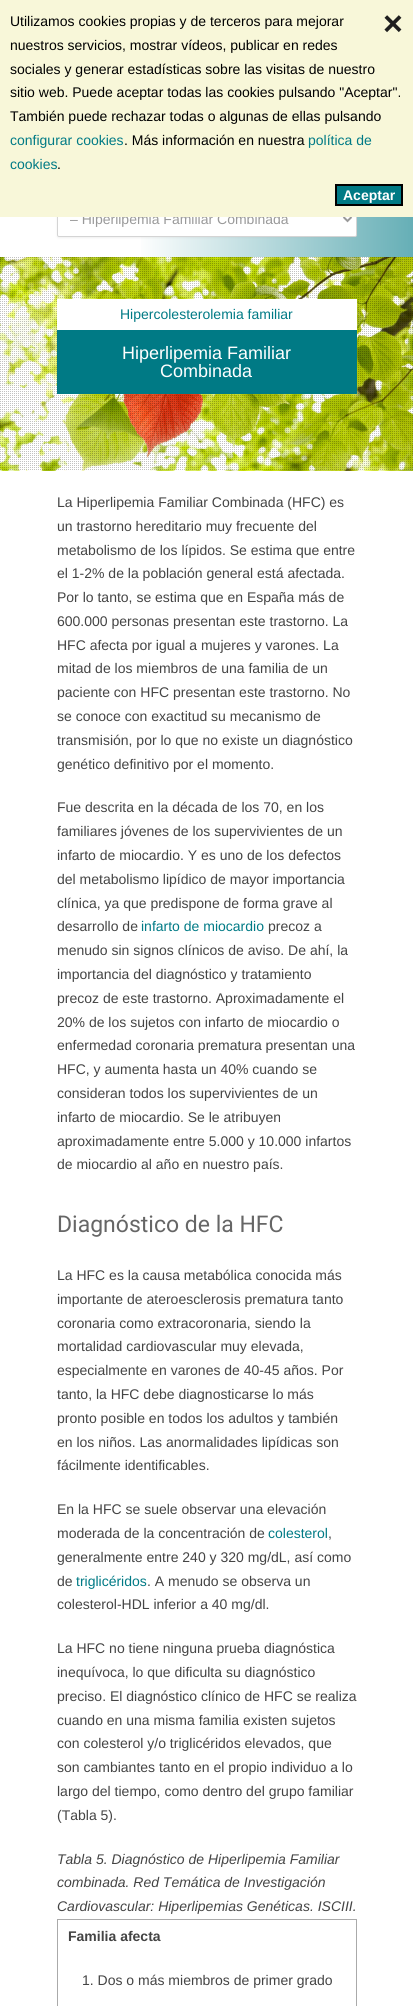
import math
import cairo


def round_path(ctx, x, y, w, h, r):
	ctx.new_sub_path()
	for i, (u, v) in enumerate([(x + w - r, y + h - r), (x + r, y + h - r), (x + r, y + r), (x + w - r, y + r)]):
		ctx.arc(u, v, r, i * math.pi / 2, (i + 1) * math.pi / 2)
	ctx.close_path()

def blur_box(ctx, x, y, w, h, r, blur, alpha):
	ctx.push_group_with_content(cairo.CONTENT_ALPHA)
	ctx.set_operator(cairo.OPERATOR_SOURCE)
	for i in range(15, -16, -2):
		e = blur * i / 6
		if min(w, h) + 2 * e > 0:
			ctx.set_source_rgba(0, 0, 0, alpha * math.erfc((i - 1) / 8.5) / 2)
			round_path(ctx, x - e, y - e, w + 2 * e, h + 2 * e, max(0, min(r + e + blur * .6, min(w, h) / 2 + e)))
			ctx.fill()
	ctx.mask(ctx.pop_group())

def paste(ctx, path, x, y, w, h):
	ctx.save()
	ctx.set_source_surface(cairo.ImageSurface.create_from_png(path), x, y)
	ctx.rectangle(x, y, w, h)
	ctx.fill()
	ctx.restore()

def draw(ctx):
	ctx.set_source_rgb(1, 1, 1)
	ctx.paint()
	gradient = cairo.LinearGradient(0, 164, 413, 164)
	gradient.add_color_stop_rgba(0.33, 1, 1, 1, 1)
	gradient.add_color_stop_rgba(1, 0.4, 0.686, 0.714, 1)
	ctx.set_source(gradient)
	ctx.rectangle(141, 217, 272, 40)
	ctx.fill()
	ctx.set_source_rgb(0.706, 0.706, 0.706)
	blur_box(ctx, 57, 202, 300, 36, 2, 1, 0.2)
	ctx.set_source_rgb(1, 1, 1)
	round_path(ctx, 57.5, 201.5, 299, 35, 1.5)
	ctx.fill_preserve()
	ctx.set_source_rgb(0.831, 0.831, 0.831)
	ctx.set_line_width(1)
	ctx.stroke()
	ctx.new_path()
	ctx.move_to(343.5, 217)
	ctx.line_to(347.5, 221)
	ctx.line_to(351.5, 217)
	ctx.set_source_rgb(0.6, 0.6, 0.6)
	ctx.set_line_width(2)
	ctx.stroke()
	ctx.select_font_face('Liberation Sans')
	ctx.set_font_size(14)
	ctx.move_to(70, 224)
	ctx.show_text('– Hiperlipemia Familiar Combinada')
	ctx.set_source_rgb(0.969, 0.965, 0.851)
	ctx.rectangle(0, 0, 413, 217)
	ctx.fill()
	ctx.set_source_rgb(0, 0, 0)
	ctx.move_to(10, 26)
	ctx.show_text('Utilizamos cookies propias y de terceros para mejorar')
	ctx.select_font_face('Liberation Sans', cairo.FONT_SLANT_NORMAL, cairo.FONT_WEIGHT_BOLD)
	ctx.set_font_size(34)
	ctx.set_source_rgb(0.122, 0.122, 0.122)
	ctx.move_to(383, 35)
	ctx.show_text('×')
	ctx.select_font_face('Liberation Sans')
	ctx.set_font_size(14)
	ctx.set_source_rgb(0, 0, 0)
	for x, y, s in [
		(10, 50, 'nuestros servicios, mostrar vídeos, publicar en redes'),
		(10, 74, 'sociales y generar estadísticas sobre las visitas de nuestro'),
		(10, 97, 'sitio web. Puede aceptar todas las cookies pulsando "Aceptar".'),
		(10, 121, 'También puede rechazar todas o algunas de ellas pulsando'),
	]:
		ctx.move_to(x, y)
		ctx.show_text(s)
	ctx.set_source_rgb(0, 0.478, 0.522)
	ctx.move_to(10, 145)
	ctx.show_text('configurar cookies')
	ctx.set_source_rgb(0, 0, 0)
	ctx.move_to(124, 145)
	ctx.show_text('. Más información en nuestra')
	ctx.set_source_rgb(0, 0.478, 0.522)
	ctx.move_to(308, 145)
	ctx.show_text('política de')
	ctx.move_to(10, 169)
	ctx.show_text('cookies')
	ctx.set_source_rgb(0, 0, 0)
	ctx.move_to(57, 169)
	ctx.show_text('.')
	ctx.set_source_rgb(0, 0.478, 0.522)
	ctx.rectangle(336, 185, 66, 20)
	ctx.fill_preserve()
	ctx.set_source_rgb(0, 0, 0)
	ctx.stroke()
	ctx.select_font_face('Liberation Sans', cairo.FONT_SLANT_NORMAL, cairo.FONT_WEIGHT_BOLD)
	ctx.set_source_rgb(1, 1, 1)
	ctx.move_to(343, 200)
	ctx.show_text('Aceptar')
	paste(ctx, 'media/1.png', 0, 257, 413, 214)
	paste(ctx, 'media/2.png', 0, 257, 413, 213)
	ctx.rectangle(57, 299, 300, 31)
	ctx.fill()
	ctx.select_font_face('Liberation Sans')
	ctx.set_source_rgb(0, 0.478, 0.522)
	ctx.move_to(120, 319)
	ctx.show_text('Hipercolesterolemia familiar')
	ctx.rectangle(57, 330, 300, 64)
	ctx.fill()
	ctx.set_font_size(18)
	ctx.set_source_rgb(1, 1, 1)
	ctx.move_to(122, 359)
	ctx.show_text('Hiperlipemia Familiar')
	ctx.move_to(160, 377)
	ctx.show_text('Combinada')
	ctx.set_font_size(14)
	ctx.set_source_rgb(0.267, 0.267, 0.267)
	for x, y, s in [
		(57, 507, 'La Hiperlipemia Familiar Combinada (HFC) es'),
		(57, 531, 'un trastorno hereditario muy frecuente del'),
		(57, 555, 'metabolismo de los lípidos. Se estima que entre'),
		(57, 578, 'el 1-2% de la población general está afectada.'),
		(57, 602, 'Por lo tanto, se estima que en España más de'),
		(57, 626, '600.000 personas presentan este trastorno. La'),
		(57, 650, 'HFC afecta por igual a mujeres y varones. La'),
		(57, 673, 'mitad de los miembros de una familia de un'),
		(57, 697, 'paciente con HFC presentan este trastorno. No'),
		(57, 721, 'se conoce con exactitud su mecanismo de'),
		(57, 745, 'transmisión, por lo que no existe un diagnóstico'),
		(57, 769, 'genético definitivo por el momento.'),
		(57, 812, 'Fue descrita en la década de los 70, en los'),
		(57, 836, 'familiares jóvenes de los supervivientes de un'),
		(57, 860, 'infarto de miocardio. Y es uno de los defectos'),
		(57, 884, 'del metabolismo lipídico de mayor importancia'),
		(57, 908, 'clínica, ya que predispone de forma grave al'),
		(57, 931, 'desarrollo de'),
	]:
		ctx.move_to(x, y)
		ctx.show_text(s)
	ctx.set_source_rgb(0, 0.478, 0.522)
	ctx.move_to(141, 931)
	ctx.show_text('infarto de miocardio')
	ctx.set_source_rgb(0.267, 0.267, 0.267)
	for x, y, s in [
		(268, 931, 'precoz a'),
		(57, 955, 'menudo sin signos clínicos de aviso. De ahí, la'),
		(57, 979, 'importancia del diagnóstico y tratamiento'),
		(57, 1003, 'precoz de este trastorno. Aproximadamente el'),
		(57, 1027, '20% de los sujetos con infarto de miocardio o'),
		(57, 1050, 'enfermedad coronaria prematura presentan una'),
		(57, 1074, 'HFC, y aumenta hasta un 40% cuando se'),
		(57, 1098, 'consideran todos los supervivientes de un'),
		(57, 1122, 'infarto de miocardio. Se le atribuyen'),
		(57, 1146, 'aproximadamente entre 5.000 y 10.000 infartos'),
		(57, 1169, 'de miocardio al año en nuestro país.'),
	]:
		ctx.move_to(x, y)
		ctx.show_text(s)
	ctx.select_font_face('Roboto')
	ctx.set_font_size(23)
	ctx.set_source_rgb(0.4, 0.4, 0.4)
	ctx.move_to(57, 1232)
	ctx.show_text('Diagnóstico de la HFC')
	ctx.select_font_face('Liberation Sans')
	ctx.set_font_size(14)
	ctx.set_source_rgb(0.267, 0.267, 0.267)
	for x, y, s in [
		(57, 1280, 'La HFC es la causa metabólica conocida más'),
		(57, 1304, 'importante de ateroesclerosis prematura tanto'),
		(57, 1328, 'coronaria como extracoronaria, siendo la'),
		(57, 1351, 'mortalidad cardiovascular muy elevada,'),
		(57, 1375, 'especialmente en varones de 40-45 años. Por'),
		(57, 1399, 'tanto, la HFC debe diagnosticarse lo más'),
		(57, 1423, 'pronto posible en todos los adultos y también'),
		(57, 1447, 'en los niños. Las anormalidades lipídicas son'),
		(57, 1470, 'fácilmente identificables.'),
		(57, 1514, 'En la HFC se suele observar una elevación'),
		(57, 1538, 'moderada de la concentración de'),
	]:
		ctx.move_to(x, y)
		ctx.show_text(s)
	ctx.set_source_rgb(0, 0.478, 0.522)
	ctx.move_to(268, 1538)
	ctx.show_text('colesterol')
	ctx.set_source_rgb(0.267, 0.267, 0.267)
	for x, y, s in [
		(328, 1538, ','),
		(57, 1562, 'generalmente entre 240 y 320 mg/dL, así como'),
		(57, 1586, 'de'),
	]:
		ctx.move_to(x, y)
		ctx.show_text(s)
	ctx.set_source_rgb(0, 0.478, 0.522)
	ctx.move_to(76, 1586)
	ctx.show_text('triglicéridos')
	ctx.set_source_rgb(0.267, 0.267, 0.267)
	for x, y, s in [
		(147, 1586, '. A menudo se observa un'),
		(57, 1609, 'colesterol-HDL inferior a 40 mg/dl.'),
		(57, 1653, 'La HFC no tiene ninguna prueba diagnóstica'),
		(57, 1677, 'inequívoca, lo que dificulta su diagnóstico'),
		(57, 1701, 'preciso. El diagnóstico clínico de HFC se realiza'),
		(57, 1725, 'cuando en una misma familia existen sujetos'),
		(57, 1748, 'con colesterol y/o triglicéridos elevados, que'),
		(57, 1772, 'son cambiantes tanto en el propio individuo a lo'),
		(57, 1796, 'largo del tiempo, como dentro del grupo familiar'),
		(57, 1820, '(Tabla 5).'),
	]:
		ctx.move_to(x, y)
		ctx.show_text(s)
	ctx.select_font_face('Liberation Sans', cairo.FONT_SLANT_ITALIC)
	for x, y, s in [
		(57, 1864, 'Tabla 5. Diagnóstico de Hiperlipemia Familiar'),
		(57, 1887, 'combinada. Red Temática de Investigación'),
		(57, 1911, 'Cardiovascular: Hiperlipemias Genéticas. ISCIII.'),
	]:
		ctx.move_to(x, y)
		ctx.show_text(s)
	ctx.set_source_rgb(0.667, 0.667, 0.667)
	ctx.rectangle(57, 1919, 300, 1)
	ctx.rectangle(356, 1919, 1, 87)
	ctx.rectangle(57, 1919, 1, 87)
	ctx.fill()
	ctx.select_font_face('Liberation Sans', cairo.FONT_SLANT_NORMAL, cairo.FONT_WEIGHT_BOLD)
	ctx.set_source_rgb(0.267, 0.267, 0.267)
	ctx.move_to(68, 1941)
	ctx.show_text('Familia afecta')
	ctx.select_font_face('Liberation Sans')
	ctx.move_to(82, 1985)
	ctx.show_text('1. Dos o más miembros de primer grado')


surface = cairo.ImageSurface(cairo.FORMAT_RGB24, 413, 2006)
ctx = cairo.Context(surface)
options = cairo.FontOptions()
options.set_hint_metrics(cairo.HINT_METRICS_OFF)
options.set_hint_style(cairo.HINT_STYLE_NONE)
ctx.set_font_options(options)
ctx.set_miter_limit(4)
draw(ctx)
surface.write_to_png('image.png')
